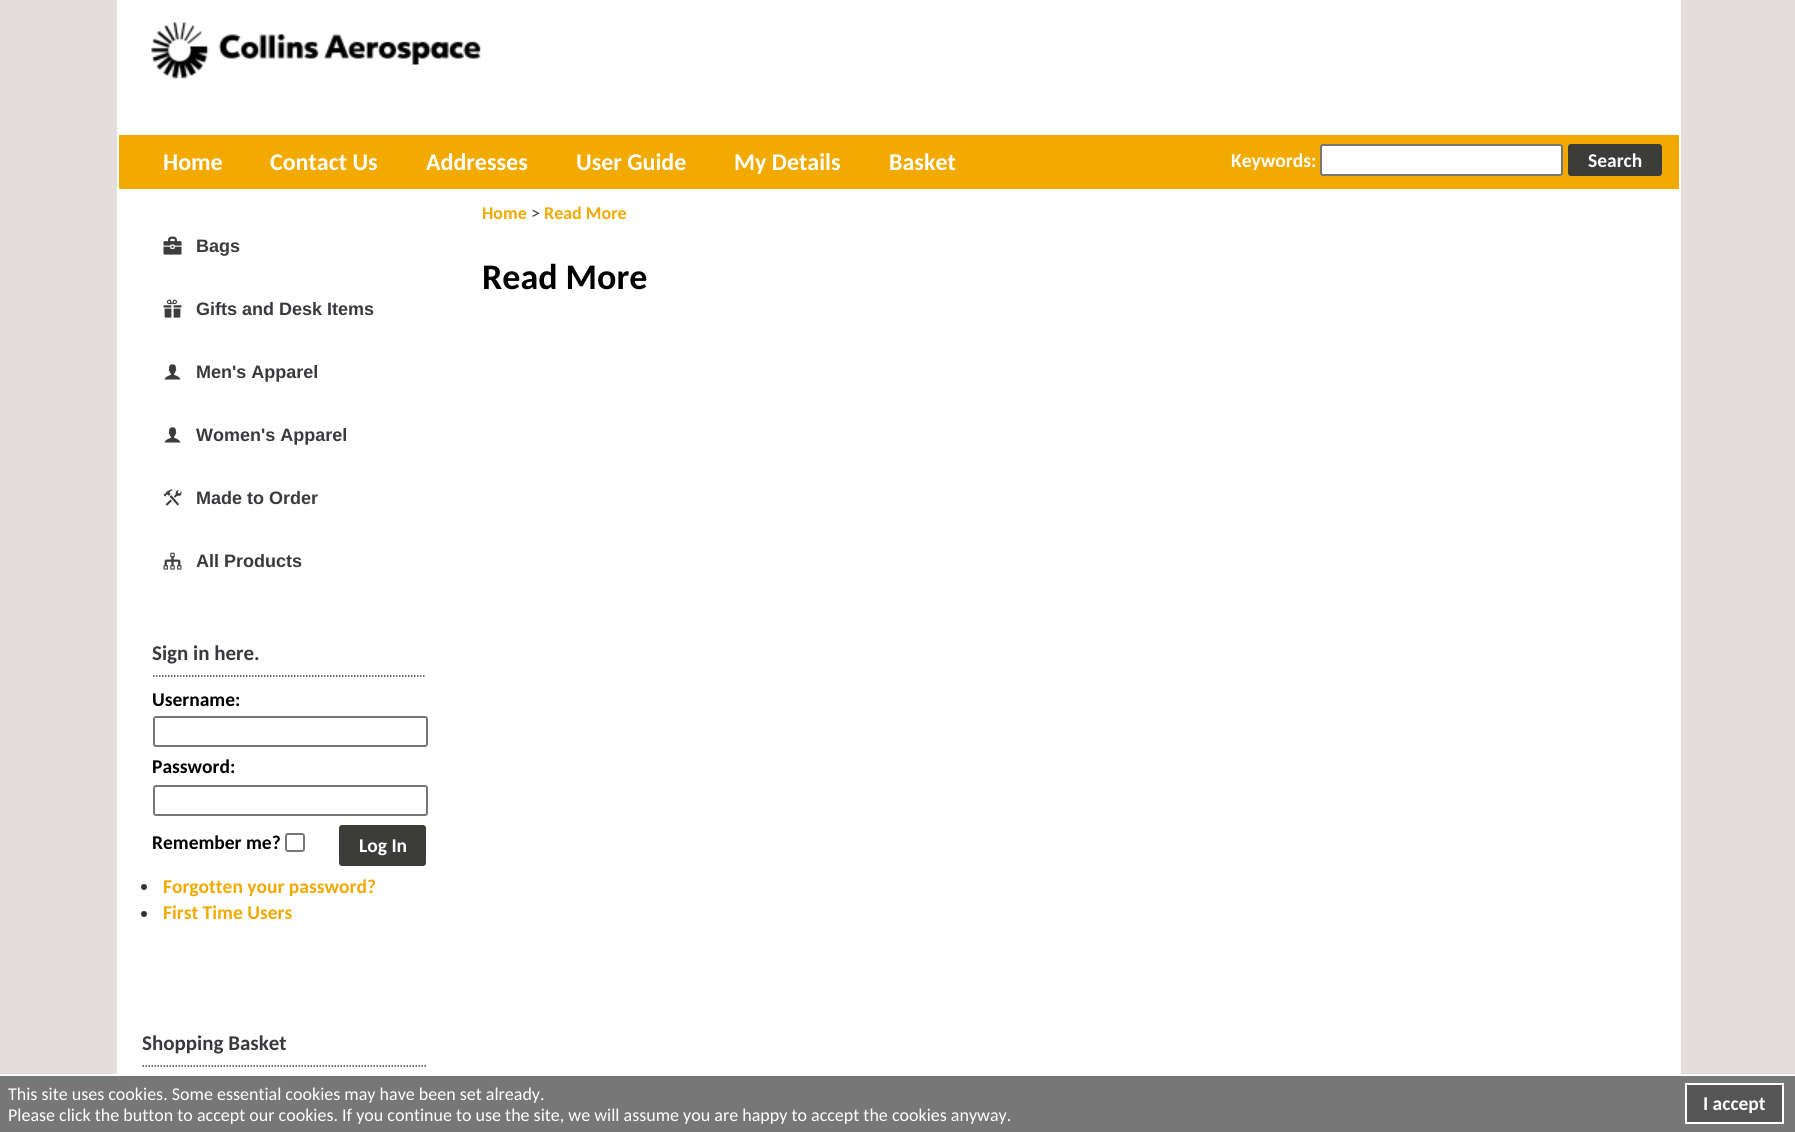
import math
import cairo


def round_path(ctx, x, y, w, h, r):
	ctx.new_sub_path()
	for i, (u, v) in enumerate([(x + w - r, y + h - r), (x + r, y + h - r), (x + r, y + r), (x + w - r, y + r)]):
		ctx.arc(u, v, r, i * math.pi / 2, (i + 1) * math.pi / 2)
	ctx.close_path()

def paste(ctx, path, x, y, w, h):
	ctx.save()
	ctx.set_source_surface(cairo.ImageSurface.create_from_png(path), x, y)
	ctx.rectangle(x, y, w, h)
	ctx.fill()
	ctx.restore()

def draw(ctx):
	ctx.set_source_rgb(0.89, 0.871, 0.859)
	ctx.paint()
	ctx.set_source_rgb(1, 1, 1)
	ctx.rectangle(117, 0, 1564, 1074)
	ctx.fill()
	paste(ctx, 'media/1.png', 151, 22, 330, 57)
	ctx.set_source_rgb(0.949, 0.663, 0)
	ctx.rectangle(119, 135, 1560, 54)
	ctx.fill()
	ctx.select_font_face('Carlito', cairo.FONT_SLANT_NORMAL, cairo.FONT_WEIGHT_BOLD)
	ctx.set_font_size(24)
	ctx.set_source_rgb(1, 1, 1)
	for x, y, s in [
		(163, 170, 'Home'),
		(270, 170, 'Contact Us'),
		(426, 170, 'Addresses'),
		(576, 170, 'User Guide'),
		(734, 170, 'My Details'),
		(889, 170, 'Basket'),
	]:
		ctx.move_to(x, y)
		ctx.show_text(s)
	ctx.set_font_size(19.5)
	ctx.move_to(1231, 167)
	ctx.show_text('Keywords:')
	round_path(ctx, 1321, 145, 241, 30, 2)
	ctx.fill_preserve()
	ctx.set_source_rgb(0.463, 0.463, 0.463)
	ctx.stroke()
	ctx.set_source_rgb(0.235, 0.235, 0.231)
	round_path(ctx, 1568, 144, 94, 32, 3)
	ctx.fill()
	ctx.set_source_rgb(1, 1, 1)
	ctx.move_to(1588, 167)
	ctx.show_text('Search')
	ctx.set_font_size(18)
	ctx.set_source_rgb(0.949, 0.663, 0)
	ctx.move_to(482, 219)
	ctx.show_text('Home')
	ctx.select_font_face('Carlito')
	ctx.set_source_rgb(0.224, 0.227, 0.239)
	ctx.move_to(531, 219)
	ctx.show_text('>')
	ctx.select_font_face('Carlito', cairo.FONT_SLANT_NORMAL, cairo.FONT_WEIGHT_BOLD)
	ctx.set_source_rgb(0.949, 0.663, 0)
	ctx.move_to(544, 219)
	ctx.show_text('Read More')
	ctx.set_font_size(36)
	ctx.set_source_rgb(0, 0, 0)
	ctx.move_to(482, 289)
	ctx.show_text('Read More')
	ctx.set_source_rgb(0.467, 0.467, 0.467)
	ctx.rectangle(0, 1076, 1795, 56)
	ctx.fill()
	ctx.set_source_rgb(1, 1, 1)
	ctx.rectangle(0, 1074, 1795, 2)
	ctx.fill()
	ctx.select_font_face('Carlito')
	ctx.set_font_size(18)
	ctx.move_to(8, 1100)
	ctx.show_text('This site uses cookies. Some essential cookies may have been set already.')
	ctx.set_source_rgb(0.333, 0.333, 0.333)
	ctx.rectangle(1686, 1084, 97, 39)
	ctx.fill_preserve()
	ctx.set_source_rgb(1, 1, 1)
	ctx.stroke()
	ctx.select_font_face('Carlito', cairo.FONT_SLANT_NORMAL, cairo.FONT_WEIGHT_BOLD)
	ctx.set_font_size(19.5)
	ctx.move_to(1703, 1110)
	ctx.show_text('I accept')
	ctx.select_font_face('Carlito')
	ctx.set_font_size(18)
	ctx.move_to(8, 1121)
	ctx.show_text('Please click the button to accept our cookies. If you continue to use the site, we will assume you are happy to accept the cookies anyway.')
	paste(ctx, 'media/2.png', 163, 236, 19, 19)
	ctx.select_font_face('Liberation Sans', cairo.FONT_SLANT_NORMAL, cairo.FONT_WEIGHT_BOLD)
	ctx.set_source_rgb(0.224, 0.227, 0.239)
	ctx.move_to(196, 252)
	ctx.show_text('Bags')
	paste(ctx, 'media/3.png', 163, 299, 19, 19)
	ctx.move_to(196, 315)
	ctx.show_text('Gifts and Desk Items')
	paste(ctx, 'media/4.png', 164, 364, 17, 16)
	ctx.move_to(196, 378)
	ctx.show_text('Men\'s Apparel')
	paste(ctx, 'media/4.png', 164, 427, 17, 16)
	ctx.move_to(196, 441)
	ctx.show_text('Women\'s Apparel')
	paste(ctx, 'media/5.png', 163, 489, 19, 17)
	ctx.move_to(196, 504)
	ctx.show_text('Made to Order')
	paste(ctx, 'media/6.png', 163, 552, 19, 18)
	ctx.move_to(196, 567)
	ctx.show_text('All Products')
	ctx.new_path()
	ctx.move_to(153, 676)
	ctx.line_to(426, 676)
	ctx.set_line_width(1.5)
	ctx.set_dash([1.5, 1.5])
	ctx.stroke()
	ctx.select_font_face('Carlito', cairo.FONT_SLANT_NORMAL, cairo.FONT_WEIGHT_BOLD)
	ctx.set_font_size(21)
	ctx.move_to(152, 660)
	ctx.show_text('Sign in here.')
	ctx.set_font_size(19.5)
	ctx.set_source_rgb(0, 0, 0)
	ctx.move_to(152, 706)
	ctx.show_text('Username:')
	round_path(ctx, 154, 717, 273, 29, 2)
	ctx.set_source_rgb(0.463, 0.463, 0.463)
	ctx.set_line_width(2)
	ctx.set_dash([])
	ctx.stroke()
	ctx.set_source_rgb(0, 0, 0)
	ctx.move_to(152, 773)
	ctx.show_text('Password:')
	round_path(ctx, 154, 786, 273, 29, 2)
	ctx.set_source_rgb(0.463, 0.463, 0.463)
	ctx.stroke()
	ctx.set_source_rgb(0, 0, 0)
	ctx.move_to(152, 849)
	ctx.show_text('Remember me?')
	round_path(ctx, 286, 834, 18, 17, 2)
	ctx.set_source_rgb(0.463, 0.463, 0.463)
	ctx.stroke()
	ctx.set_source_rgb(0.235, 0.235, 0.231)
	round_path(ctx, 339, 825, 87, 41, 3)
	ctx.fill()
	ctx.set_source_rgb(1, 1, 1)
	ctx.move_to(359, 852)
	ctx.show_text('Log In')
	ctx.set_source_rgb(0.204, 0.22, 0.2)
	ctx.new_path()
	ctx.arc(144, 887, 3, 0, 2 * math.pi)
	ctx.fill()
	ctx.set_source_rgb(0.949, 0.663, 0)
	ctx.move_to(163, 893)
	ctx.show_text('Forgotten your password?')
	ctx.set_source_rgb(0.204, 0.22, 0.2)
	ctx.new_path()
	ctx.arc(144, 914, 3, 0, 2 * math.pi)
	ctx.fill()
	ctx.set_source_rgb(0.949, 0.663, 0)
	ctx.move_to(163, 919)
	ctx.show_text('First Time Users')
	ctx.new_path()
	ctx.move_to(142.5, 1066)
	ctx.line_to(426, 1066)
	ctx.set_source_rgb(0.224, 0.227, 0.239)
	ctx.set_line_width(1.5)
	ctx.set_dash([1.5, 1.5])
	ctx.stroke()
	ctx.set_font_size(21)
	ctx.move_to(142, 1050)
	ctx.show_text('Shopping Basket')


surface = cairo.ImageSurface(cairo.FORMAT_RGB24, 1795, 1132)
ctx = cairo.Context(surface)
options = cairo.FontOptions()
options.set_hint_metrics(cairo.HINT_METRICS_OFF)
options.set_hint_style(cairo.HINT_STYLE_NONE)
ctx.set_font_options(options)
ctx.set_miter_limit(4)
draw(ctx)
surface.write_to_png('image.png')
